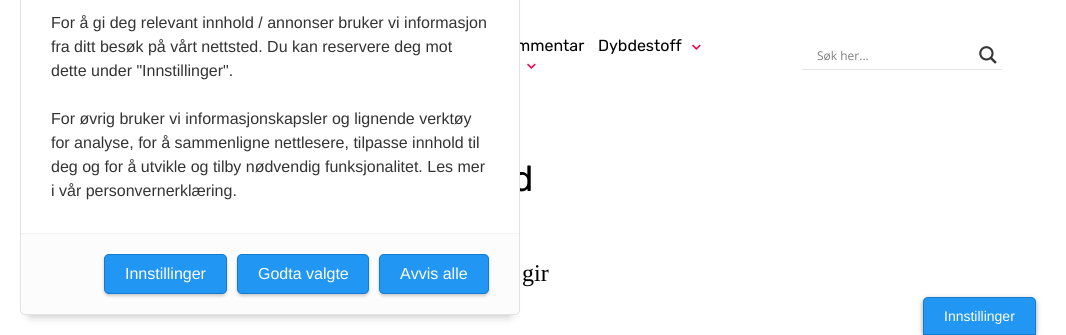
import math
import cairo


def round_path(ctx, x, y, w, h, r):
	ctx.new_sub_path()
	for i, (u, v) in enumerate([(x + w - r, y + h - r), (x + r, y + h - r), (x + r, y + r), (x + w - r, y + r)]):
		ctx.arc(u, v, r, i * math.pi / 2, (i + 1) * math.pi / 2)
	ctx.close_path()

def blur_box(ctx, x, y, w, h, r, blur, alpha):
	ctx.push_group_with_content(cairo.CONTENT_ALPHA)
	ctx.set_operator(cairo.OPERATOR_SOURCE)
	for i in range(15, -16, -2):
		e = blur * i / 6
		if min(w, h) + 2 * e > 0:
			ctx.set_source_rgba(0, 0, 0, alpha * math.erfc((i - 1) / 8.5) / 2)
			round_path(ctx, x - e, y - e, w + 2 * e, h + 2 * e, max(0, min(r + e + blur * .6, min(w, h) / 2 + e)))
			ctx.fill()
	ctx.mask(ctx.pop_group())

def paste(ctx, path, x, y, w, h):
	ctx.save()
	ctx.set_source_surface(cairo.ImageSurface.create_from_png(path), x, y)
	ctx.rectangle(x, y, w, h)
	ctx.fill()
	ctx.restore()

def draw(ctx):
	ctx.set_source_rgb(1, 1, 1)
	ctx.paint()
	ctx.set_source_rgb(0, 0, 0)
	blur_box(ctx, 30, -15, 480, 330, 0, 5, 0.3)
	ctx.select_font_face('Rubik')
	ctx.set_font_size(16)
	ctx.set_source_rgb(0, 0, 0)
	ctx.move_to(516, 51)
	ctx.show_text('mmentar')
	ctx.set_font_size(36)
	ctx.move_to(512, 191)
	ctx.show_text('d')
	ctx.set_source_rgb(1, 1, 1)
	round_path(ctx, 20.5, -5.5, 499, 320, 4.5)
	ctx.fill_preserve()
	ctx.set_source_rgb(0.886, 0.886, 0.886)
	ctx.set_line_width(1)
	ctx.stroke()
	ctx.select_font_face('Liberation Sans')
	ctx.set_font_size(16)
	ctx.set_source_rgb(0.2, 0.2, 0.2)
	for x, y, s in [
		(51, 28, 'For å gi deg relevant innhold / annonser bruker vi informasjon'),
		(51, 52, 'fra ditt besøk på vårt nettsted. Du kan reservere deg mot'),
		(51, 76, 'dette under "Innstillinger".'),
		(51, 124, 'For øvrig bruker vi informasjonskapsler og lignende verktøy'),
		(51, 148, 'for analyse, for å sammenligne nettlesere, tilpasse innhold til'),
		(51, 172, 'deg og for å utvikle og tilby nødvendig funksjonalitet. Les mer'),
		(51, 196, 'i vår personvernerklæring.'),
	]:
		ctx.move_to(x, y)
		ctx.show_text(s)
	ctx.set_source_rgb(0.988, 0.988, 0.988)
	ctx.new_path()
	ctx.move_to(21, 233)
	ctx.line_to(519, 233)
	ctx.line_to(519, 310)
	ctx.curve_to(519, 312, 517, 314, 515, 314)
	ctx.line_to(25, 314)
	ctx.curve_to(23, 314, 21, 312, 21, 310)
	ctx.close_path()
	ctx.fill()
	ctx.set_source_rgb(0.949, 0.949, 0.949)
	ctx.rectangle(21, 233, 498, 1)
	ctx.fill()
	ctx.set_source_rgb(0, 0, 0)
	blur_box(ctx, 104, 256, 123, 40, 5, 1.5, 0.2)
	ctx.set_source_rgb(0.129, 0.588, 0.953)
	round_path(ctx, 104.5, 254.5, 122, 39, 4.5)
	ctx.fill_preserve()
	ctx.set_source_rgb(0.082, 0.482, 0.808)
	ctx.stroke()
	ctx.set_source_rgb(1, 1, 1)
	ctx.move_to(125, 279)
	ctx.show_text('Innstillinger')
	ctx.set_source_rgb(0, 0, 0)
	blur_box(ctx, 237, 256, 132, 40, 5, 1.5, 0.2)
	ctx.set_source_rgb(0.129, 0.588, 0.953)
	round_path(ctx, 237.5, 254.5, 131, 39, 4.5)
	ctx.fill_preserve()
	ctx.set_source_rgb(0.082, 0.482, 0.808)
	ctx.stroke()
	ctx.set_source_rgb(1, 1, 1)
	ctx.move_to(258, 279)
	ctx.show_text('Godta valgte')
	ctx.set_source_rgb(0, 0, 0)
	blur_box(ctx, 379, 256, 110, 40, 5, 1.5, 0.2)
	ctx.set_source_rgb(0.129, 0.588, 0.953)
	round_path(ctx, 379.5, 254.5, 109, 39, 4.5)
	ctx.fill_preserve()
	ctx.set_source_rgb(0.082, 0.482, 0.808)
	ctx.stroke()
	ctx.set_source_rgb(1, 1, 1)
	ctx.move_to(400, 279)
	ctx.show_text('Avvis alle')
	paste(ctx, 'media/1.png', 527, 63, 9, 6)
	ctx.select_font_face('Rubik')
	ctx.set_source_rgb(0, 0, 0)
	ctx.move_to(598, 51)
	ctx.show_text('Dybdestoff')
	paste(ctx, 'media/1.png', 692, 44, 9, 6)
	ctx.set_source_rgb(0.894, 0.894, 0.894)
	ctx.rectangle(802, 69, 200, 1)
	ctx.fill()
	ctx.select_font_face('Open Sans')
	ctx.set_font_size(12)
	ctx.set_source_rgb(0.49, 0.49, 0.49)
	ctx.move_to(817, 60)
	ctx.show_text('Søk her...')
	paste(ctx, 'media/2.png', 979, 46, 18, 18)
	ctx.select_font_face('Liberation Serif')
	ctx.set_font_size(24)
	ctx.set_source_rgb(0, 0, 0)
	ctx.move_to(522, 281)
	ctx.show_text('gir')
	ctx.set_source_rgb(0, 0, 0)
	blur_box(ctx, 923, 299, 113, 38, 5, 2.5, 0.4)
	ctx.set_source_rgb(0.129, 0.588, 0.953)
	ctx.new_path()
	ctx.move_to(928, 297.5)
	ctx.line_to(1031, 297.5)
	ctx.curve_to(1033.5, 297.5, 1035.5, 299.5, 1035.5, 302)
	ctx.line_to(1035.5, 334.5)
	ctx.line_to(923.5, 334.5)
	ctx.line_to(923.5, 302)
	ctx.curve_to(923.5, 299.5, 925.5, 297.5, 928, 297.5)
	ctx.close_path()
	ctx.fill_preserve()
	ctx.set_source_rgb(0.082, 0.482, 0.808)
	ctx.stroke()
	ctx.select_font_face('Liberation Sans')
	ctx.set_font_size(14)
	ctx.set_source_rgb(1, 1, 1)
	ctx.move_to(944, 321)
	ctx.show_text('Innstillinger')


surface = cairo.ImageSurface(cairo.FORMAT_RGB24, 1066, 335)
ctx = cairo.Context(surface)
options = cairo.FontOptions()
options.set_hint_metrics(cairo.HINT_METRICS_OFF)
options.set_hint_style(cairo.HINT_STYLE_NONE)
ctx.set_font_options(options)
ctx.set_miter_limit(4)
draw(ctx)
surface.write_to_png('image.png')
